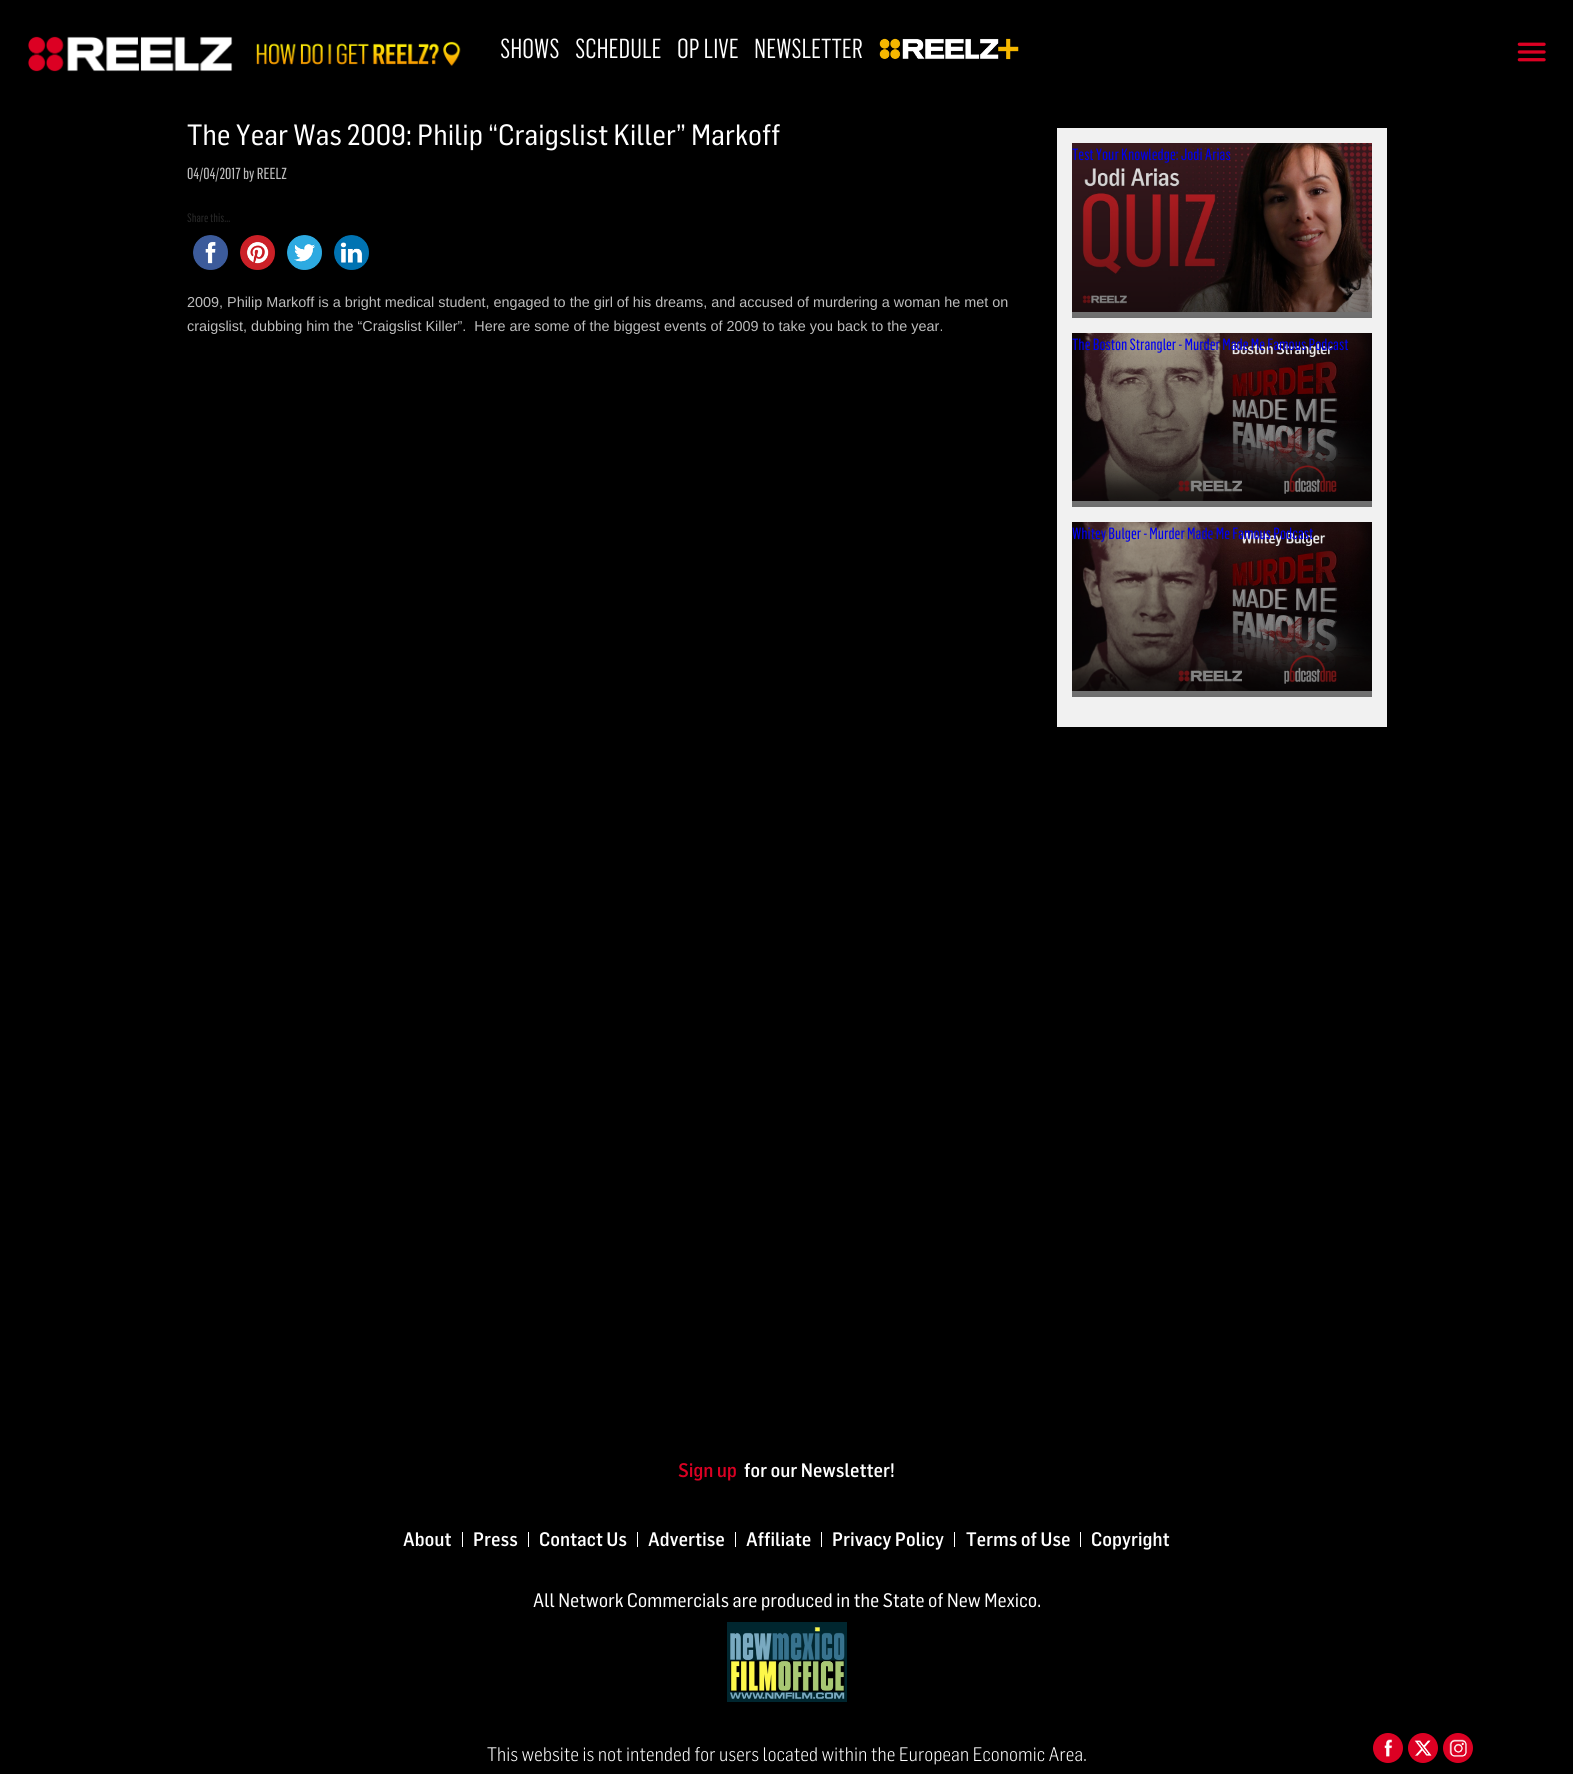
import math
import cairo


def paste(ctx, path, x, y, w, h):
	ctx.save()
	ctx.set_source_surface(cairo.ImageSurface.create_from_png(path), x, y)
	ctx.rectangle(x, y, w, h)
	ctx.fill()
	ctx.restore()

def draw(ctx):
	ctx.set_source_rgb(0, 0, 0)
	ctx.paint()
	paste(ctx, 'media/1.png', 28, 36, 205, 36)
	paste(ctx, 'media/2.png', 256, 41, 205, 25)
	ctx.select_font_face('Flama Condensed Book')
	ctx.set_font_size(27)
	ctx.set_source_rgb(1, 1, 1)
	for x, y, s in [
		(500, 58, 'SHOWS'),
		(575, 58, 'SCHEDULE'),
		(677, 58, 'OP LIVE'),
		(754, 58, 'NEWSLETTER'),
	]:
		ctx.move_to(x, y)
		ctx.show_text(s)
	paste(ctx, 'media/3.png', 879, 38, 140, 22)
	paste(ctx, 'media/4.png', 1517, 42, 29, 20)
	paste(ctx, 'media/5.png', 187, 124, 593, 27)
	ctx.select_font_face('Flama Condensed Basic')
	ctx.set_font_size(15.75)
	ctx.set_source_rgb(0.741, 0.741, 0.741)
	ctx.move_to(187, 179)
	ctx.show_text('04/04/2017 by REELZ')
	ctx.set_font_size(12)
	ctx.set_source_rgb(0.153, 0.153, 0.153)
	ctx.move_to(187, 222)
	ctx.show_text('Share this...')
	paste(ctx, 'media/6.png', 193, 235, 35, 35)
	paste(ctx, 'media/7.png', 240, 235, 35, 35)
	paste(ctx, 'media/8.png', 287, 235, 35, 35)
	paste(ctx, 'media/9.png', 334, 235, 35, 35)
	ctx.select_font_face('Liberation Sans')
	ctx.set_font_size(14.4)
	ctx.set_source_rgb(0.741, 0.741, 0.741)
	ctx.move_to(187, 307)
	ctx.show_text('2009, Philip Markoff is a bright medical student, engaged to the girl of his dreams, and accused of murdering a woman he met on')
	ctx.move_to(187, 331)
	ctx.show_text('craigslist, dubbing him the “Craigslist Killer”.  Here are some of the biggest events of 2009 to take you back to the year.')
	ctx.set_source_rgb(0.945, 0.945, 0.945)
	ctx.rectangle(1057, 128, 330, 599)
	ctx.fill()
	paste(ctx, 'media/10.png', 1072, 143, 300, 169)
	gradient = cairo.LinearGradient(1222, 143, 1222, 318)
	gradient.add_color_stop_rgba(0, 0, 0, 0, 0)
	gradient.add_color_stop_rgba(1, 0, 0, 0, 0.55)
	ctx.set_source(gradient)
	ctx.rectangle(1072, 150, 300, 168)
	ctx.fill()
	ctx.select_font_face('Flama Condensed Basic')
	ctx.set_font_size(16)
	ctx.set_source_rgb(0, 0, 0.933)
	ctx.move_to(1072, 160)
	ctx.show_text('Test Your Knowledge: Jodi Arias')
	paste(ctx, 'media/11.png', 1072, 333, 300, 168)
	gradient = cairo.LinearGradient(1222, 333, 1222, 507)
	gradient.add_color_stop_rgba(0, 0, 0, 0, 0)
	gradient.add_color_stop_rgba(1, 0, 0, 0, 0.55)
	ctx.set_source(gradient)
	ctx.rectangle(1072, 340, 300, 167)
	ctx.fill()
	ctx.set_source_rgb(0, 0, 0.933)
	ctx.move_to(1072, 350)
	ctx.show_text('The Boston Strangler - Murder Made Me Famous Podcast')
	paste(ctx, 'media/12.png', 1072, 522, 300, 169)
	gradient = cairo.LinearGradient(1222, 522, 1222, 697)
	gradient.add_color_stop_rgba(0, 0, 0, 0, 0)
	gradient.add_color_stop_rgba(1, 0, 0, 0, 0.55)
	ctx.set_source(gradient)
	ctx.rectangle(1072, 529, 300, 168)
	ctx.fill()
	ctx.set_source_rgb(0, 0, 0.933)
	ctx.move_to(1072, 539)
	ctx.show_text('Whitey Bulger - Murder Made Me Famous Podcast')
	paste(ctx, 'media/13.png', 678, 1463, 58, 18)
	paste(ctx, 'media/14.png', 744, 1463, 150, 15)
	paste(ctx, 'media/15.png', 403, 1532, 48, 15)
	ctx.set_source_rgb(1, 1, 1)
	ctx.rectangle(462, 1532, 1, 15)
	ctx.fill()
	paste(ctx, 'media/16.png', 474, 1532, 44, 15)
	ctx.rectangle(528, 1532, 1, 15)
	ctx.fill()
	paste(ctx, 'media/17.png', 540, 1532, 87, 15)
	ctx.rectangle(637, 1532, 1, 15)
	ctx.fill()
	paste(ctx, 'media/18.png', 648, 1532, 76, 15)
	ctx.rectangle(735, 1532, 1, 15)
	ctx.fill()
	paste(ctx, 'media/19.png', 746, 1532, 65, 15)
	ctx.rectangle(821, 1532, 1, 15)
	ctx.fill()
	paste(ctx, 'media/20.png', 833, 1532, 111, 18)
	ctx.rectangle(954, 1532, 1, 15)
	ctx.fill()
	paste(ctx, 'media/21.png', 966, 1532, 104, 15)
	ctx.rectangle(1080, 1532, 1, 15)
	ctx.fill()
	paste(ctx, 'media/22.png', 1092, 1532, 78, 18)
	paste(ctx, 'media/23.png', 533, 1593, 507, 18)
	paste(ctx, 'media/24.png', 727, 1622, 120, 80)
	paste(ctx, 'media/25.png', 487, 1747, 599, 18)
	ctx.set_source_rgb(0.863, 0, 0.137)
	ctx.arc(1388, 1748, 15, 0, 2 * math.pi)
	ctx.fill()
	paste(ctx, 'media/26.png', 1384, 1739, 9, 18)
	ctx.arc(1423, 1748, 15, 0, 2 * math.pi)
	ctx.fill()
	paste(ctx, 'media/27.png', 1414, 1740, 18, 16)
	ctx.arc(1458, 1748, 15, 0, 2 * math.pi)
	ctx.fill()
	paste(ctx, 'media/28.png', 1449, 1739, 18, 18)


surface = cairo.ImageSurface(cairo.FORMAT_RGB24, 1573, 1774)
ctx = cairo.Context(surface)
options = cairo.FontOptions()
options.set_hint_metrics(cairo.HINT_METRICS_OFF)
options.set_hint_style(cairo.HINT_STYLE_NONE)
ctx.set_font_options(options)
ctx.set_miter_limit(4)
draw(ctx)
surface.write_to_png('image.png')
